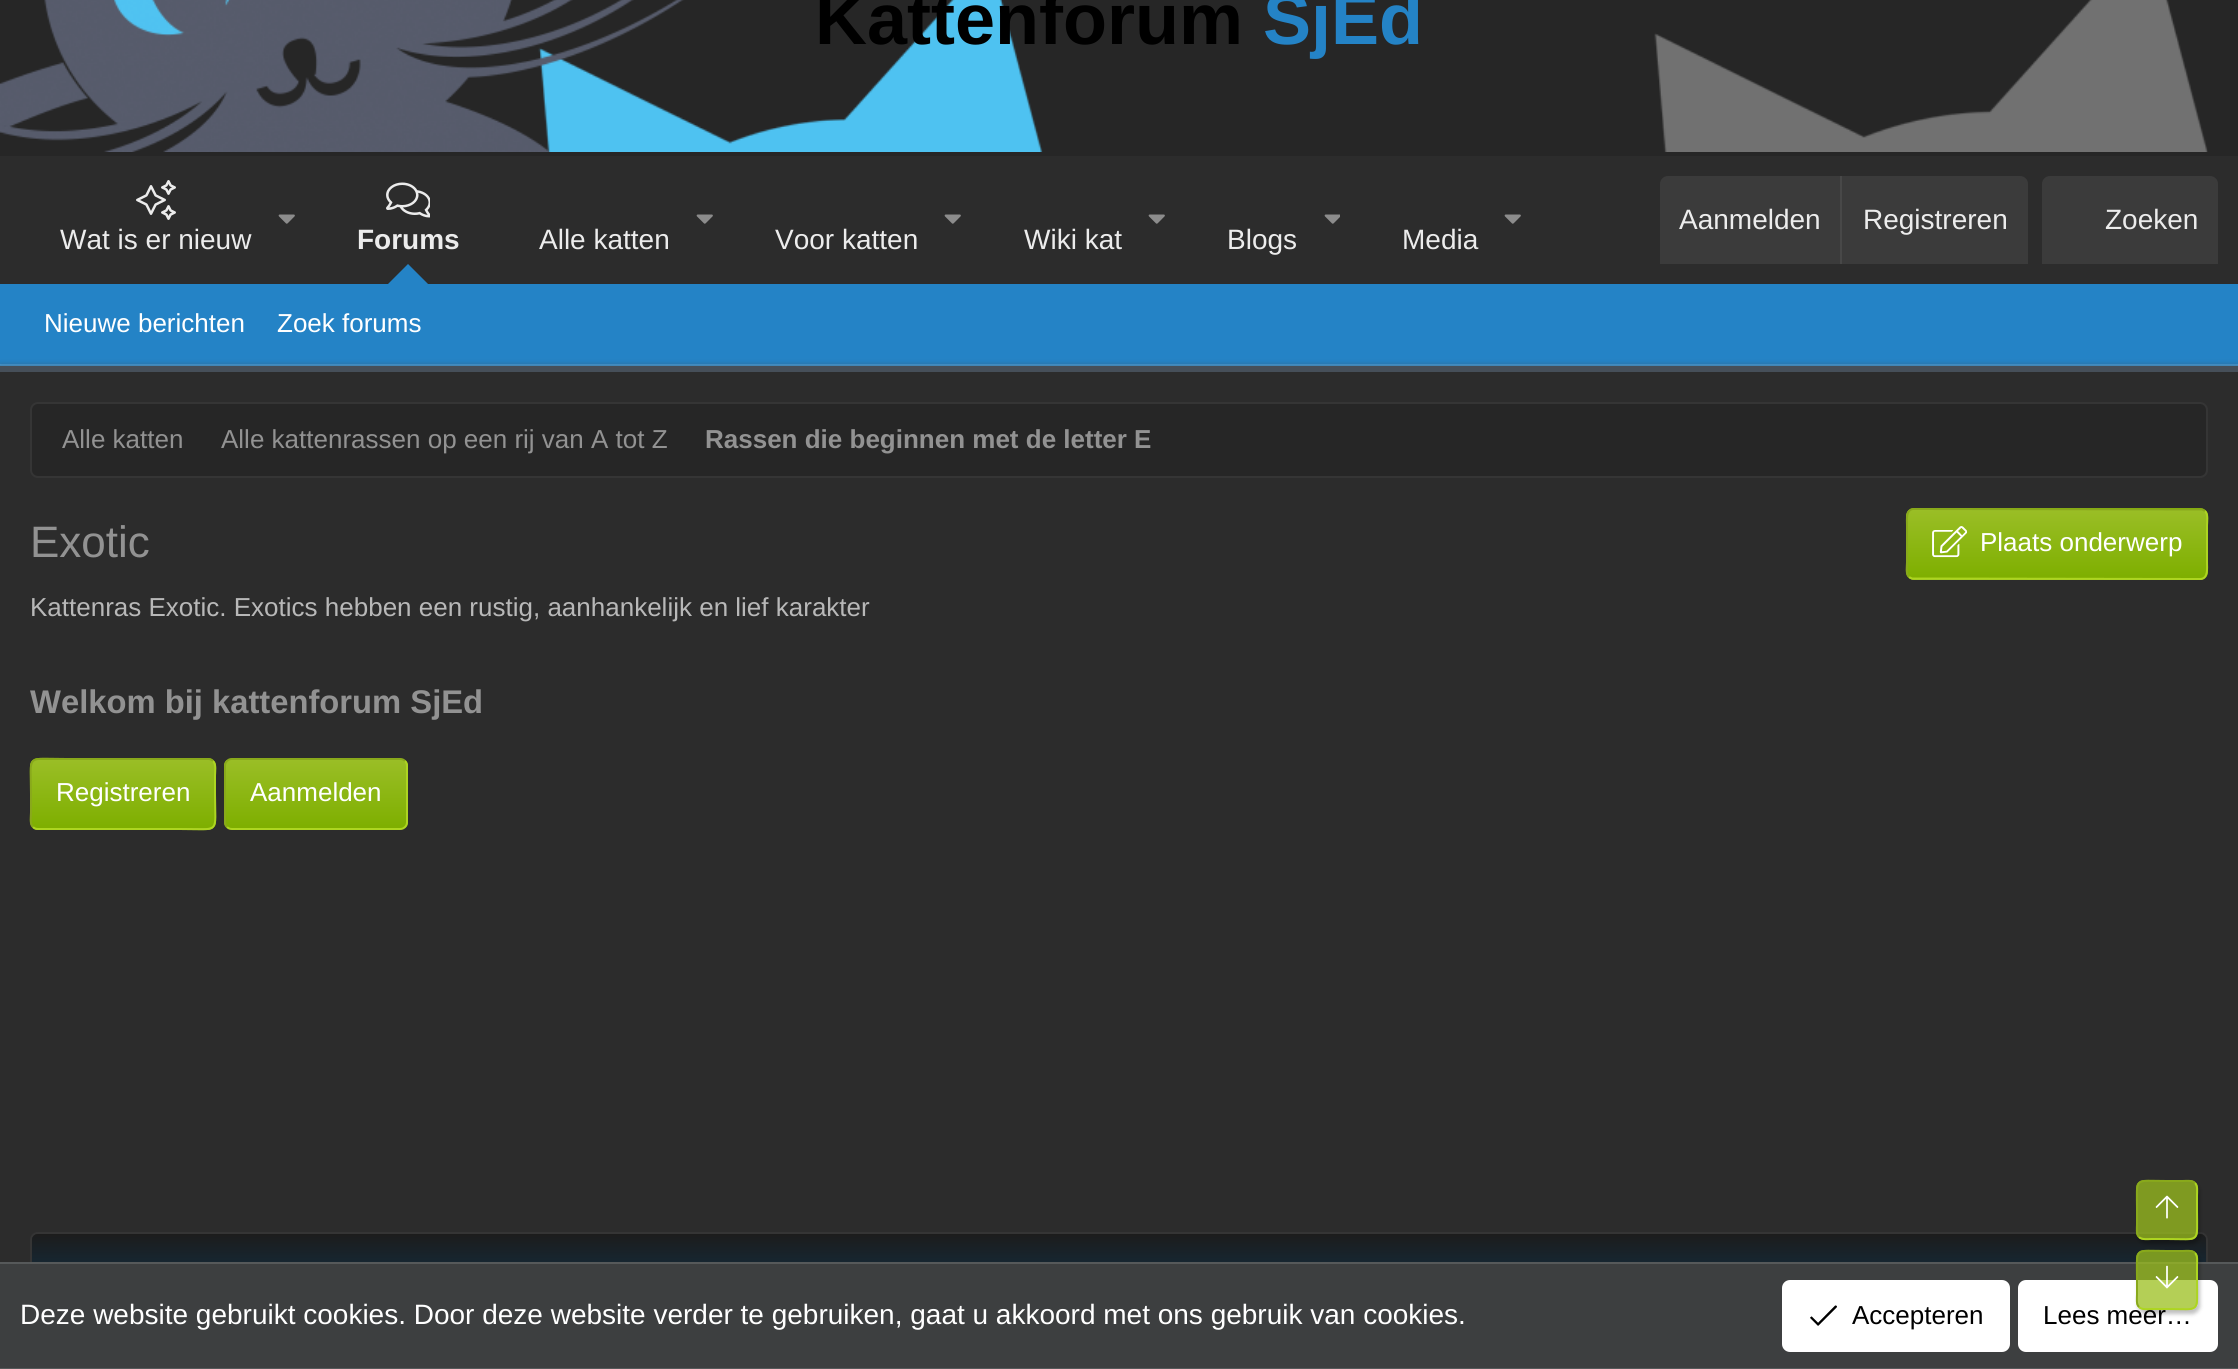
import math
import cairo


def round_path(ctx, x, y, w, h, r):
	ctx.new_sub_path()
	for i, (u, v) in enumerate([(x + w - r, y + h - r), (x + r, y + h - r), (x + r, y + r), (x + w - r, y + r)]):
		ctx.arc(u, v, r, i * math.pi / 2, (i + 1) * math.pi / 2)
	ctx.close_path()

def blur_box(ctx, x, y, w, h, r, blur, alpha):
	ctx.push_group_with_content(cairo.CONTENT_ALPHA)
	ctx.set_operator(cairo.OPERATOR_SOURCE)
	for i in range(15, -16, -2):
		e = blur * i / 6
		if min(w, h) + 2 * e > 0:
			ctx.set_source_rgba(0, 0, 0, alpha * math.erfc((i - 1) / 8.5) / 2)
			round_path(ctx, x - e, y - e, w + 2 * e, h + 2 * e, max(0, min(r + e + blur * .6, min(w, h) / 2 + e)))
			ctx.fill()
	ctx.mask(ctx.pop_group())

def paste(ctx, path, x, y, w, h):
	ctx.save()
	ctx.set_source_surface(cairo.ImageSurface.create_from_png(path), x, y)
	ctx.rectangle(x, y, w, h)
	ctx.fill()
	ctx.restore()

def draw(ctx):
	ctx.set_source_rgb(0.149, 0.149, 0.149)
	ctx.paint()
	paste(ctx, 'media/1.png', 0, 0, 2208, 152)
	ctx.select_font_face('Liberation Sans', cairo.FONT_SLANT_NORMAL, cairo.FONT_WEIGHT_BOLD)
	ctx.set_font_size(72)
	ctx.set_source_rgb(0, 0, 0)
	ctx.move_to(815, 44)
	ctx.show_text('Kattenforum')
	ctx.set_source_rgb(0.141, 0.514, 0.776)
	ctx.move_to(1263, 44)
	ctx.show_text('SjEd')
	ctx.set_source_rgb(0.173, 0.173, 0.173)
	ctx.rectangle(0, 156, 2238, 128)
	ctx.fill()
	ctx.set_source_rgb(0.231, 0.231, 0.231)
	ctx.new_path()
	ctx.move_to(1668, 176)
	ctx.line_to(2020, 176)
	ctx.curve_to(2024.5, 176, 2028, 179.5, 2028, 184)
	ctx.line_to(2028, 264)
	ctx.line_to(1660, 264)
	ctx.line_to(1660, 184)
	ctx.curve_to(1660, 179.5, 1663.5, 176, 1668, 176)
	ctx.close_path()
	ctx.fill()
	ctx.select_font_face('Liberation Sans')
	ctx.set_font_size(28)
	ctx.set_source_rgb(0.925, 0.925, 0.925)
	ctx.move_to(1679, 229)
	ctx.show_text('Aanmelden')
	ctx.set_source_rgb(0.282, 0.282, 0.282)
	ctx.rectangle(1840, 176, 2, 88)
	ctx.fill()
	ctx.set_source_rgb(0.925, 0.925, 0.925)
	ctx.move_to(1863, 229)
	ctx.show_text('Registreren')
	ctx.set_source_rgb(0.231, 0.231, 0.231)
	ctx.new_path()
	ctx.move_to(2050, 176)
	ctx.line_to(2210, 176)
	ctx.curve_to(2214.5, 176, 2218, 179.5, 2218, 184)
	ctx.line_to(2218, 264)
	ctx.line_to(2042, 264)
	ctx.line_to(2042, 184)
	ctx.curve_to(2042, 179.5, 2045.5, 176, 2050, 176)
	ctx.close_path()
	ctx.fill()
	ctx.set_source_rgb(0.925, 0.925, 0.925)
	ctx.move_to(2105, 229)
	ctx.show_text('Zoeken')
	paste(ctx, 'media/2.png', 278, 214, 17, 10)
	paste(ctx, 'media/3.png', 136, 180, 40, 40)
	ctx.move_to(60, 249)
	ctx.show_text('Wat is er nieuw')
	paste(ctx, 'media/4.png', 386, 182, 44, 36)
	ctx.select_font_face('Liberation Sans', cairo.FONT_SLANT_NORMAL, cairo.FONT_WEIGHT_BOLD)
	ctx.move_to(357, 249)
	ctx.show_text('Forums')
	ctx.set_source_rgb(0.141, 0.514, 0.776)
	ctx.new_path()
	ctx.move_to(428, 284)
	ctx.line_to(388, 284)
	ctx.line_to(408, 264)
	ctx.close_path()
	ctx.fill()
	paste(ctx, 'media/2.png', 696, 214, 17, 10)
	ctx.select_font_face('Liberation Sans')
	ctx.set_source_rgb(0.925, 0.925, 0.925)
	ctx.move_to(539, 249)
	ctx.show_text('Alle katten')
	paste(ctx, 'media/2.png', 944, 214, 17, 10)
	ctx.move_to(775, 249)
	ctx.show_text('Voor katten')
	paste(ctx, 'media/2.png', 1148, 214, 17, 10)
	ctx.move_to(1024, 249)
	ctx.show_text('Wiki kat')
	paste(ctx, 'media/5.png', 1324, 214, 16, 10)
	ctx.move_to(1227, 249)
	ctx.show_text('Blogs')
	paste(ctx, 'media/2.png', 1504, 214, 17, 10)
	ctx.move_to(1402, 249)
	ctx.show_text('Media')
	ctx.set_source_rgb(0.141, 0.514, 0.776)
	ctx.rectangle(0, 284, 2238, 80)
	ctx.fill()
	ctx.set_source_rgb(0.255, 0.612, 0.863)
	ctx.rectangle(0, 364, 2238, 2)
	ctx.fill()
	ctx.set_font_size(26)
	ctx.set_source_rgb(1, 1, 1)
	ctx.move_to(44, 332)
	ctx.show_text('Nieuwe berichten')
	ctx.move_to(277, 332)
	ctx.show_text('Zoek forums')
	ctx.set_source_rgb(0.263, 0.259, 0.259)
	blur_box(ctx, 0, 368, 2238, 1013, 0, 4, 1)
	ctx.set_source_rgb(0.173, 0.173, 0.173)
	ctx.rectangle(0, 372, 2238, 890)
	ctx.fill()
	ctx.set_source_rgb(0.275, 0.31, 0.349)
	ctx.rectangle(0, 366, 2238, 6)
	ctx.fill()
	ctx.set_source_rgb(0.149, 0.149, 0.149)
	round_path(ctx, 31, 403, 2176, 74, 7)
	ctx.fill_preserve()
	ctx.set_source_rgb(0.208, 0.208, 0.208)
	ctx.stroke()
	ctx.set_source_rgb(0.573, 0.573, 0.573)
	ctx.move_to(62, 448)
	ctx.show_text('Alle katten')
	ctx.move_to(221, 448)
	ctx.show_text('Alle kattenrassen op een rij van A tot Z')
	ctx.select_font_face('Liberation Sans', cairo.FONT_SLANT_NORMAL, cairo.FONT_WEIGHT_BOLD)
	ctx.move_to(705, 448)
	ctx.show_text('Rassen die beginnen met de letter E')
	ctx.select_font_face('Liberation Sans')
	ctx.set_font_size(44)
	ctx.move_to(30, 557)
	ctx.show_text('Exotic')
	ctx.save()
	round_path(ctx, 1906, 508, 302, 72, 8)
	ctx.clip()
	gradient = cairo.LinearGradient(2057, 442, 2057, 510)
	gradient.add_color_stop_rgba(0, 0.604, 0.745, 0.149, 1)
	gradient.add_color_stop_rgba(1, 0.494, 0.686, 0, 1)
	ctx.set_source(gradient)
	ctx.rectangle(1906, 508, 302, 2)
	ctx.fill()
	gradient = cairo.LinearGradient(2057, 510, 2057, 578)
	gradient.add_color_stop_rgba(0, 0.604, 0.745, 0.149, 1)
	gradient.add_color_stop_rgba(1, 0.494, 0.686, 0, 1)
	ctx.set_source(gradient)
	ctx.rectangle(1906, 510, 302, 68)
	ctx.fill()
	gradient = cairo.LinearGradient(2057, 578, 2057, 646)
	gradient.add_color_stop_rgba(0, 0.604, 0.745, 0.149, 1)
	gradient.add_color_stop_rgba(1, 0.494, 0.686, 0, 1)
	ctx.set_source(gradient)
	ctx.rectangle(1906, 578, 302, 2)
	ctx.fill()
	ctx.restore()
	ctx.new_path()
	ctx.move_to(2205, 511)
	ctx.curve_to(2208.5, 514.5, 2207, 521.5, 2207, 525.5)
	ctx.line_to(2207, 562.5)
	ctx.curve_to(2207, 568, 2208.5, 579, 2200, 579)
	ctx.line_to(1912, 578.5)
	ctx.line_to(1909, 577)
	ctx.set_source_rgb(0.678, 0.835, 0.129)
	ctx.stroke()
	ctx.new_path()
	ctx.move_to(1909, 577)
	ctx.curve_to(1905.5, 573.5, 1907, 566.5, 1907, 562.5)
	ctx.line_to(1907, 525.5)
	ctx.curve_to(1907, 520, 1905.5, 509, 1914, 509)
	ctx.line_to(2202, 509.5)
	ctx.line_to(2205, 511)
	ctx.set_source_rgb(0.537, 0.663, 0.106)
	ctx.stroke()
	paste(ctx, 'media/6.png', 1932, 526, 36, 32)
	ctx.set_font_size(26)
	ctx.set_source_rgb(1, 1, 1)
	ctx.move_to(1980, 551)
	ctx.show_text('Plaats onderwerp')
	ctx.set_source_rgb(0.722, 0.722, 0.722)
	ctx.move_to(30, 616)
	ctx.show_text('Kattenras Exotic. Exotics hebben een rustig, aanhankelijk en lief karakter')
	ctx.select_font_face('Liberation Sans', cairo.FONT_SLANT_NORMAL, cairo.FONT_WEIGHT_BOLD)
	ctx.set_font_size(32.75)
	ctx.set_source_rgb(0.573, 0.573, 0.573)
	ctx.move_to(30, 713)
	ctx.show_text('Welkom bij kattenforum SjEd')
	ctx.save()
	round_path(ctx, 30, 758, 186, 72, 8)
	ctx.clip()
	gradient = cairo.LinearGradient(123, 692, 123, 760)
	gradient.add_color_stop_rgba(0, 0.604, 0.745, 0.149, 1)
	gradient.add_color_stop_rgba(1, 0.494, 0.686, 0, 1)
	ctx.set_source(gradient)
	ctx.rectangle(30, 758, 186, 2)
	ctx.fill()
	gradient = cairo.LinearGradient(123, 760, 123, 828)
	gradient.add_color_stop_rgba(0, 0.604, 0.745, 0.149, 1)
	gradient.add_color_stop_rgba(1, 0.494, 0.686, 0, 1)
	ctx.set_source(gradient)
	ctx.rectangle(30, 760, 186, 68)
	ctx.fill()
	gradient = cairo.LinearGradient(123, 828, 123, 896)
	gradient.add_color_stop_rgba(0, 0.604, 0.745, 0.149, 1)
	gradient.add_color_stop_rgba(1, 0.494, 0.686, 0, 1)
	ctx.set_source(gradient)
	ctx.rectangle(30, 828, 186, 2)
	ctx.fill()
	ctx.restore()
	ctx.new_path()
	ctx.move_to(213, 761)
	ctx.curve_to(216.5, 764.5, 215, 771.5, 215, 775.5)
	ctx.line_to(215, 794)
	ctx.curve_to(215, 835, 221.5, 829, 179.5, 829)
	ctx.line_to(38, 829)
	ctx.curve_to(36, 829, 34.5, 828.5, 33, 827)
	ctx.set_source_rgb(0.678, 0.835, 0.129)
	ctx.stroke()
	ctx.new_path()
	ctx.move_to(33, 827)
	ctx.curve_to(29.5, 823.5, 31, 816.5, 31, 812.5)
	ctx.line_to(31, 794)
	ctx.curve_to(31, 753, 24.5, 759, 66.5, 759)
	ctx.line_to(208, 759)
	ctx.curve_to(210, 759, 211.5, 759.5, 213, 761)
	ctx.set_source_rgb(0.537, 0.663, 0.106)
	ctx.stroke()
	ctx.select_font_face('Liberation Sans')
	ctx.set_font_size(26)
	ctx.set_source_rgb(1, 1, 1)
	ctx.move_to(56, 801)
	ctx.show_text('Registreren')
	ctx.save()
	round_path(ctx, 224, 758, 184, 72, 8)
	ctx.clip()
	gradient = cairo.LinearGradient(316, 760, 316, 828)
	gradient.add_color_stop_rgba(0, 0.604, 0.745, 0.149, 1)
	gradient.add_color_stop_rgba(1, 0.494, 0.686, 0, 1)
	ctx.set_source(gradient)
	ctx.rectangle(224, 760, 184, 68)
	ctx.fill()
	ctx.restore()
	ctx.new_path()
	ctx.move_to(405, 761)
	ctx.curve_to(406.5, 762.5, 407, 764, 407, 766)
	ctx.line_to(407, 822)
	ctx.curve_to(407, 824, 406.5, 825.5, 405, 827)
	ctx.curve_to(403.5, 828.5, 402, 829, 400, 829)
	ctx.line_to(232, 829)
	ctx.curve_to(230, 829, 228.5, 828.5, 227, 827)
	ctx.set_source_rgb(0.678, 0.835, 0.129)
	ctx.stroke()
	ctx.new_path()
	ctx.move_to(227, 827)
	ctx.curve_to(225.5, 825.5, 225, 824, 225, 822)
	ctx.line_to(225, 766)
	ctx.curve_to(225, 764, 225.5, 762.5, 227, 761)
	ctx.curve_to(228.5, 759.5, 230, 759, 232, 759)
	ctx.line_to(400, 759)
	ctx.curve_to(402, 759, 403.5, 759.5, 405, 761)
	ctx.set_source_rgb(0.537, 0.663, 0.106)
	ctx.stroke()
	ctx.set_source_rgb(1, 1, 1)
	ctx.move_to(250, 801)
	ctx.show_text('Aanmelden')
	ctx.set_source_rgb(0.149, 0.149, 0.149)
	round_path(ctx, 30, 1232, 2178, 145, 8)
	ctx.fill()
	ctx.new_path()
	ctx.move_to(33, 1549)
	ctx.curve_to(31.5, 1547.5, 31, 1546, 31, 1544)
	ctx.line_to(31, 1240)
	ctx.curve_to(31, 1238, 31.5, 1236.5, 33, 1235)
	ctx.curve_to(34.5, 1233.5, 36, 1233, 38, 1233)
	ctx.line_to(2200, 1233)
	ctx.curve_to(2202, 1233, 2203.5, 1233.5, 2205, 1235)
	ctx.curve_to(2206.5, 1236.5, 2207, 1238, 2207, 1240)
	ctx.line_to(2207, 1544)
	ctx.curve_to(2207, 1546, 2206.5, 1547.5, 2205, 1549)
	ctx.set_source_rgb(0.208, 0.208, 0.208)
	ctx.stroke()
	gradient = cairo.LinearGradient(1119, 1234, 1119, 1306)
	gradient.add_color_stop_rgba(0, 0.11, 0.11, 0.11, 1)
	gradient.add_color_stop_rgba(1, 0.055, 0.208, 0.314, 1)
	ctx.set_source(gradient)
	ctx.new_path()
	ctx.move_to(38, 1234)
	ctx.line_to(2200, 1234)
	ctx.curve_to(2203.5, 1234, 2206, 1236.5, 2206, 1240)
	ctx.line_to(2206, 1306)
	ctx.line_to(32, 1306)
	ctx.line_to(32, 1240)
	ctx.curve_to(32, 1236.5, 34.5, 1234, 38, 1234)
	ctx.close_path()
	ctx.fill()
	ctx.save()
	ctx.set_fill_rule(cairo.FILL_RULE_EVEN_ODD)
	ctx.new_path()
	ctx.move_to(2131, 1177)
	ctx.line_to(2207, 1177)
	ctx.line_to(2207, 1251)
	ctx.line_to(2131, 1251)
	ctx.close_path()
	ctx.move_to(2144, 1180)
	ctx.line_to(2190, 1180)
	ctx.curve_to(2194.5, 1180, 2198, 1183.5, 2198, 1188)
	ctx.line_to(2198, 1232)
	ctx.curve_to(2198, 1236.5, 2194.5, 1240, 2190, 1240)
	ctx.line_to(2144, 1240)
	ctx.curve_to(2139.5, 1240, 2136, 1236.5, 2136, 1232)
	ctx.line_to(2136, 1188)
	ctx.curve_to(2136, 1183.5, 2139.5, 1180, 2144, 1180)
	ctx.close_path()
	ctx.clip()
	ctx.set_source_rgb(0, 0, 0)
	blur_box(ctx, 2138, 1184, 62, 60, 8, 2, 0.25)
	ctx.restore()
	ctx.set_source_rgba(0.608, 0.749, 0.118, 0.75)
	round_path(ctx, 2136, 1180, 62, 60, 8)
	ctx.fill()
	ctx.new_path()
	ctx.move_to(2195, 1183)
	ctx.curve_to(2198, 1186, 2197, 1191.5, 2197, 1195.5)
	ctx.line_to(2197, 1210)
	ctx.curve_to(2197, 1244, 2201, 1239, 2167, 1239)
	ctx.line_to(2151.5, 1239)
	ctx.curve_to(2148, 1239, 2142, 1240, 2139, 1237)
	ctx.set_source_rgb(0.678, 0.835, 0.129)
	ctx.stroke()
	ctx.new_path()
	ctx.move_to(2139, 1237)
	ctx.curve_to(2136, 1234, 2137, 1228.5, 2137, 1224.5)
	ctx.line_to(2137, 1210)
	ctx.curve_to(2137, 1176, 2133, 1181, 2167, 1181)
	ctx.line_to(2182.5, 1181)
	ctx.curve_to(2186, 1181, 2192, 1180, 2195, 1183)
	ctx.set_source_rgb(0.537, 0.663, 0.106)
	ctx.stroke()
	paste(ctx, 'media/7.png', 2155, 1195, 24, 24)
	ctx.set_source_rgb(0.239, 0.247, 0.251)
	ctx.rectangle(0, 1264, 2238, 104)
	ctx.fill()
	ctx.set_source_rgb(0.337, 0.349, 0.353)
	ctx.rectangle(0, 1262, 2238, 2)
	ctx.fill()
	ctx.set_source_rgb(1, 1, 1)
	round_path(ctx, 2019, 1281, 198, 70, 7)
	ctx.fill_preserve()
	ctx.stroke()
	ctx.save()
	ctx.set_fill_rule(cairo.FILL_RULE_EVEN_ODD)
	ctx.new_path()
	ctx.move_to(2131, 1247)
	ctx.line_to(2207, 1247)
	ctx.line_to(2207, 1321)
	ctx.line_to(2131, 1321)
	ctx.close_path()
	ctx.move_to(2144, 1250)
	ctx.line_to(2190, 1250)
	ctx.curve_to(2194.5, 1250, 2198, 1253.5, 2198, 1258)
	ctx.line_to(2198, 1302)
	ctx.curve_to(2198, 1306.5, 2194.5, 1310, 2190, 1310)
	ctx.line_to(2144, 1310)
	ctx.curve_to(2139.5, 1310, 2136, 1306.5, 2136, 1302)
	ctx.line_to(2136, 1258)
	ctx.curve_to(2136, 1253.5, 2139.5, 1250, 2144, 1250)
	ctx.close_path()
	ctx.clip()
	ctx.set_source_rgb(0, 0, 0)
	blur_box(ctx, 2138, 1254, 62, 60, 8, 2, 0.25)
	ctx.restore()
	ctx.set_source_rgb(0, 0, 0)
	ctx.move_to(2043, 1324)
	ctx.show_text('Lees meer…')
	ctx.set_source_rgba(0.608, 0.749, 0.118, 0.75)
	round_path(ctx, 2136, 1250, 62, 60, 8)
	ctx.fill()
	ctx.new_path()
	ctx.move_to(2195, 1253)
	ctx.curve_to(2198, 1256, 2197, 1261.5, 2197, 1265.5)
	ctx.line_to(2197, 1280)
	ctx.curve_to(2197, 1314, 2201, 1309, 2167, 1309)
	ctx.line_to(2151.5, 1309)
	ctx.curve_to(2148, 1309, 2142, 1310, 2139, 1307)
	ctx.set_source_rgb(0.678, 0.835, 0.129)
	ctx.stroke()
	ctx.new_path()
	ctx.move_to(2139, 1307)
	ctx.curve_to(2136, 1304, 2137, 1298.5, 2137, 1294.5)
	ctx.line_to(2137, 1280)
	ctx.curve_to(2137, 1246, 2133, 1251, 2167, 1251)
	ctx.line_to(2182.5, 1251)
	ctx.curve_to(2186, 1251, 2192, 1250, 2195, 1253)
	ctx.set_source_rgb(0.537, 0.663, 0.106)
	ctx.stroke()
	paste(ctx, 'media/8.png', 2155, 1265, 24, 24)
	ctx.set_source_rgb(0.337, 0.349, 0.353)
	ctx.rectangle(0, 1368, 2238, 1)
	ctx.fill()
	ctx.set_font_size(28)
	ctx.set_source_rgb(1, 1, 1)
	ctx.move_to(20, 1324)
	ctx.show_text('Deze website gebruikt cookies. Door deze website verder te gebruiken, gaat u akkoord met ons gebruik van cookies.')
	round_path(ctx, 1783, 1281, 226, 70, 7)
	ctx.fill_preserve()
	ctx.stroke()
	paste(ctx, 'media/9.png', 1810, 1305, 27, 21)
	ctx.set_font_size(26)
	ctx.set_source_rgb(0, 0, 0)
	ctx.move_to(1852, 1324)
	ctx.show_text('Accepteren')


surface = cairo.ImageSurface(cairo.FORMAT_RGB24, 2238, 1369)
ctx = cairo.Context(surface)
options = cairo.FontOptions()
options.set_hint_metrics(cairo.HINT_METRICS_OFF)
options.set_hint_style(cairo.HINT_STYLE_NONE)
ctx.set_font_options(options)
ctx.set_miter_limit(4)
draw(ctx)
surface.write_to_png('image.png')
